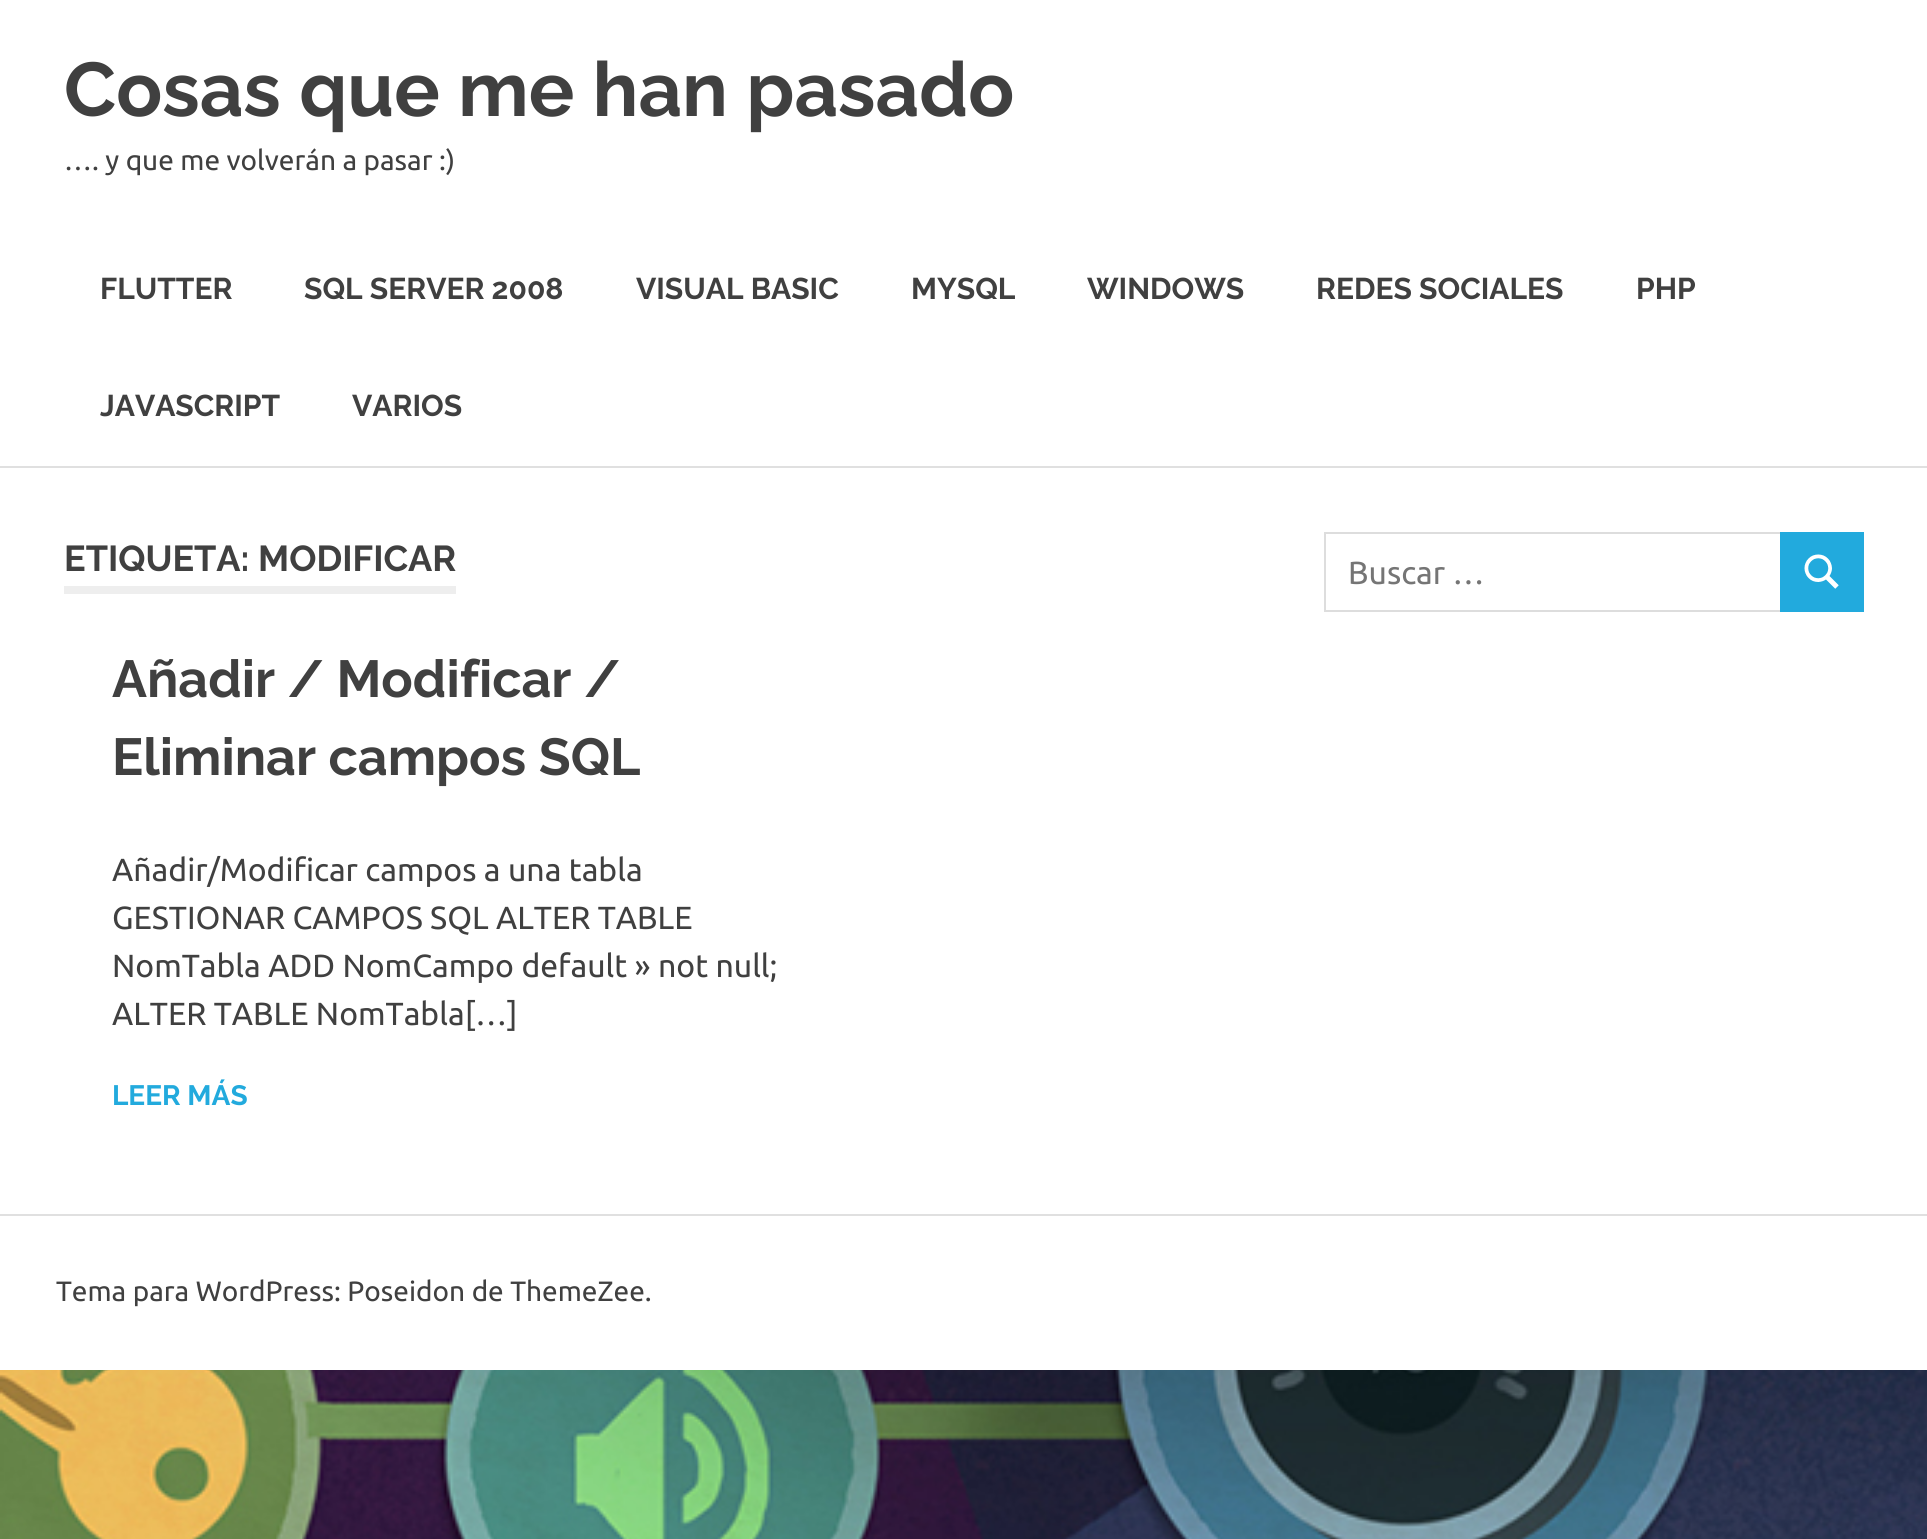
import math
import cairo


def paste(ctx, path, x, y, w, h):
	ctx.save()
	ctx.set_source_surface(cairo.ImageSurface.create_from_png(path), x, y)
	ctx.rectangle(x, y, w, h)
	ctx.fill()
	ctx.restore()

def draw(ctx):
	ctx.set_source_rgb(1, 1, 1)
	ctx.paint()
	paste(ctx, 'media/1.png', 0, 1370, 1927, 169)
	ctx.set_source_rgb(0.878, 0.878, 0.878)
	ctx.rectangle(0, 466, 1927, 2)
	ctx.fill()
	ctx.select_font_face('Raleway', cairo.FONT_SLANT_NORMAL, cairo.FONT_WEIGHT_BOLD)
	ctx.set_font_size(76)
	ctx.set_source_rgb(0.251, 0.251, 0.251)
	ctx.move_to(64, 116)
	ctx.show_text('Cosas que me han pasado')
	ctx.select_font_face('Ubuntu')
	ctx.set_font_size(28)
	ctx.move_to(64, 170)
	ctx.show_text('…. y que me volverán a pasar :)')
	ctx.select_font_face('Raleway', cairo.FONT_SLANT_NORMAL, cairo.FONT_WEIGHT_BOLD)
	ctx.set_font_size(30)
	for x, y, s in [
		(100, 299, 'FLUTTER'),
		(304, 299, 'SQL SERVER 2008'),
		(636, 299, 'VISUAL BASIC'),
		(911, 299, 'MYSQL'),
		(1087, 299, 'WINDOWS'),
		(1316, 299, 'REDES SOCIALES'),
		(1636, 299, 'PHP'),
		(100, 416, 'JAVASCRIPT'),
		(352, 416, 'VARIOS'),
	]:
		ctx.move_to(x, y)
		ctx.show_text(s)
	ctx.set_source_rgb(0.933, 0.933, 0.933)
	ctx.rectangle(64, 586, 392, 8)
	ctx.fill()
	ctx.set_font_size(36)
	ctx.set_source_rgb(0.251, 0.251, 0.251)
	ctx.move_to(64, 571)
	ctx.show_text('ETIQUETA: MODIFICAR')
	ctx.set_font_size(52)
	ctx.move_to(112, 697)
	ctx.show_text('Añadir / Modificar /')
	ctx.move_to(112, 775)
	ctx.show_text('Eliminar campos SQL')
	ctx.select_font_face('Ubuntu')
	ctx.set_font_size(32)
	for x, y, s in [
		(112, 881, 'Añadir/Modificar campos a una tabla'),
		(112, 929, 'GESTIONAR CAMPOS SQL ALTER TABLE'),
		(112, 977, 'NomTabla ADD NomCampo default » not null;'),
		(112, 1025, 'ALTER TABLE NomTabla[…]'),
	]:
		ctx.move_to(x, y)
		ctx.show_text(s)
	ctx.select_font_face('Raleway', cairo.FONT_SLANT_NORMAL, cairo.FONT_WEIGHT_BOLD)
	ctx.set_font_size(28)
	ctx.set_source_rgb(0.133, 0.667, 0.867)
	ctx.move_to(112, 1105)
	ctx.show_text('LEER MÁS')
	ctx.rectangle(1325, 533, 456, 78)
	ctx.set_source_rgb(0.867, 0.867, 0.867)
	ctx.stroke()
	ctx.select_font_face('Ubuntu')
	ctx.set_font_size(32)
	ctx.set_source_rgb(0.459, 0.459, 0.459)
	ctx.move_to(1348, 584)
	ctx.show_text('Buscar …')
	ctx.set_source_rgb(0.133, 0.667, 0.867)
	ctx.rectangle(1780, 532, 84, 80)
	ctx.fill()
	paste(ctx, 'media/2.png', 1804, 554, 35, 35)
	ctx.set_source_rgb(0.878, 0.878, 0.878)
	ctx.rectangle(0, 1214, 1927, 2)
	ctx.fill()
	ctx.set_font_size(28)
	ctx.set_source_rgb(0.251, 0.251, 0.251)
	ctx.move_to(56, 1301)
	ctx.show_text('Tema para WordPress: Poseidon de ThemeZee.')


surface = cairo.ImageSurface(cairo.FORMAT_RGB24, 1927, 1539)
ctx = cairo.Context(surface)
options = cairo.FontOptions()
options.set_hint_metrics(cairo.HINT_METRICS_OFF)
options.set_hint_style(cairo.HINT_STYLE_NONE)
ctx.set_font_options(options)
ctx.set_miter_limit(4)
draw(ctx)
surface.write_to_png('image.png')
